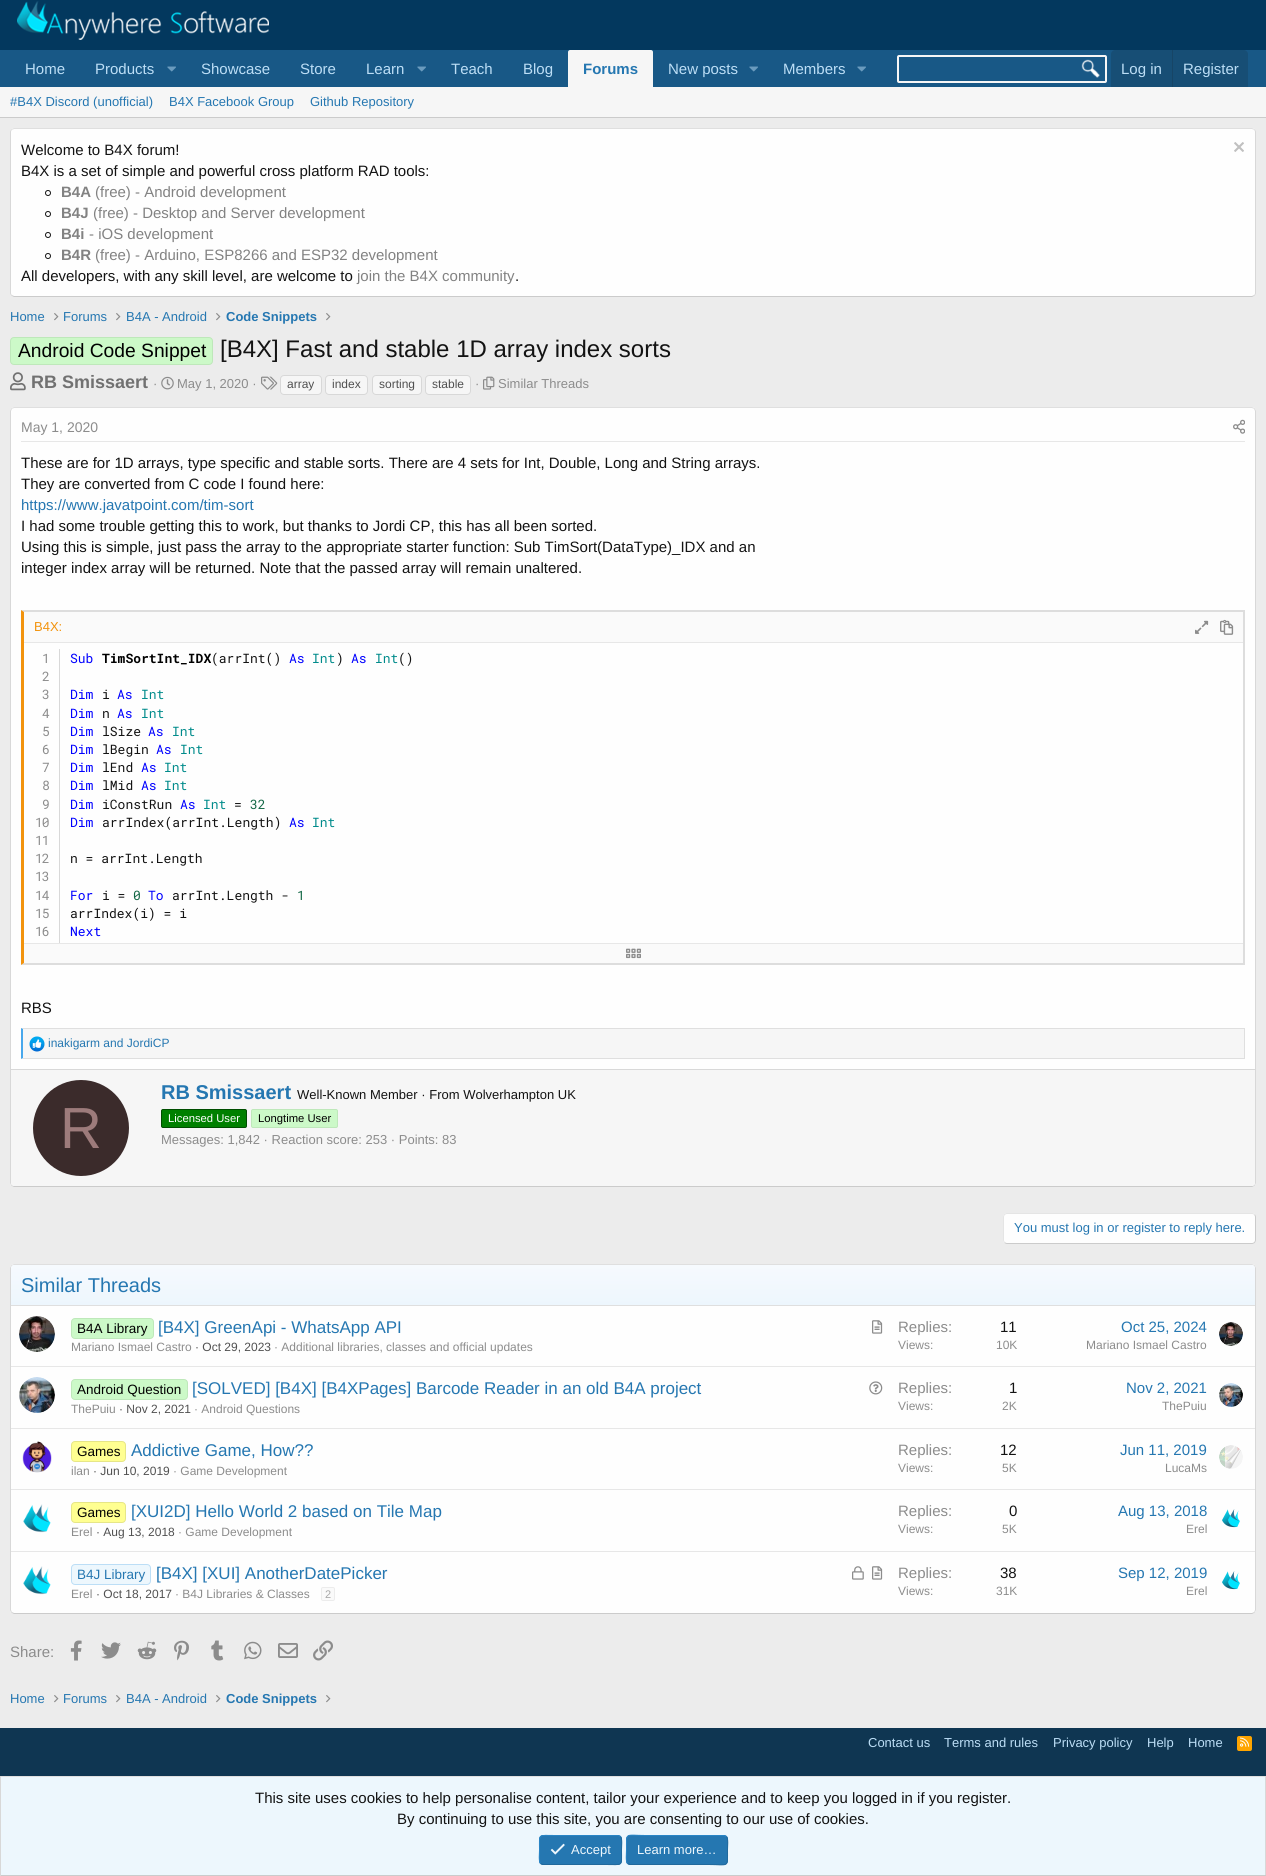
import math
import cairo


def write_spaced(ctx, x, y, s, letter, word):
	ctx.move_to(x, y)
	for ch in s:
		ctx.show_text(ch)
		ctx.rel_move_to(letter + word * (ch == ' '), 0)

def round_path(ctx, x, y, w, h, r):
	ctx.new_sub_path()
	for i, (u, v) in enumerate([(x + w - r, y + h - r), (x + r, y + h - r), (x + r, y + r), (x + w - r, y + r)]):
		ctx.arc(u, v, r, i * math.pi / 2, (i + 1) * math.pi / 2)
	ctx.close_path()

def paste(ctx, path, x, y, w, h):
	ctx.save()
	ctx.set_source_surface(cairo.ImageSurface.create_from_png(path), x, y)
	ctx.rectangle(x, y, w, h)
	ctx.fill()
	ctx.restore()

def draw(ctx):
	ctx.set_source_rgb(0.925, 0.925, 0.925)
	ctx.paint()
	ctx.set_source_rgb(0.012, 0.22, 0.369)
	ctx.rectangle(0, 0, 1266, 50)
	ctx.fill()
	paste(ctx, 'media/1.png', 17, 1, 252, 39)
	ctx.set_source_rgb(0.094, 0.345, 0.525)
	ctx.rectangle(0, 50, 1266, 37)
	ctx.fill()
	ctx.select_font_face('Liberation Sans')
	ctx.set_font_size(15)
	ctx.set_source_rgb(0.737, 0.871, 0.961)
	ctx.move_to(25, 74)
	ctx.show_text('Home')
	ctx.move_to(95, 74)
	ctx.show_text('Products')
	paste(ctx, 'media/2.png', 167, 66, 9, 6)
	for x, y, s in [
		(201, 74, 'Showcase'),
		(300, 74, 'Store'),
		(366, 74, 'Learn'),
	]:
		ctx.move_to(x, y)
		ctx.show_text(s)
	paste(ctx, 'media/2.png', 417, 66, 9, 6)
	ctx.move_to(451, 74)
	ctx.show_text('Teach')
	ctx.move_to(523, 74)
	ctx.show_text('Blog')
	ctx.set_source_rgb(0.961, 0.961, 0.961)
	ctx.new_path()
	ctx.move_to(570, 50)
	ctx.line_to(651, 50)
	ctx.curve_to(652, 50, 653, 51, 653, 52)
	ctx.line_to(653, 87)
	ctx.line_to(568, 87)
	ctx.line_to(568, 52)
	ctx.curve_to(568, 51, 569, 50, 570, 50)
	ctx.close_path()
	ctx.fill()
	ctx.select_font_face('Liberation Sans', cairo.FONT_SLANT_NORMAL, cairo.FONT_WEIGHT_BOLD)
	ctx.set_source_rgb(0.145, 0.467, 0.694)
	ctx.move_to(583, 74)
	ctx.show_text('Forums')
	ctx.select_font_face('Liberation Sans')
	ctx.set_source_rgb(0.737, 0.871, 0.961)
	ctx.move_to(668, 74)
	ctx.show_text('New posts')
	paste(ctx, 'media/2.png', 749, 66, 9, 6)
	ctx.move_to(783, 74)
	ctx.show_text('Members')
	paste(ctx, 'media/2.png', 857, 66, 9, 6)
	paste(ctx, 'media/3.png', 1081, 59, 19, 19)
	round_path(ctx, 898, 56, 208, 26, 1)
	ctx.set_source_rgb(0.961, 0.961, 0.961)
	ctx.stroke()
	ctx.set_source_rgb(0.09, 0.306, 0.459)
	ctx.new_path()
	ctx.move_to(1115, 50)
	ctx.line_to(1244, 50)
	ctx.curve_to(1246, 50, 1248, 52, 1248, 54)
	ctx.line_to(1248, 87)
	ctx.line_to(1111, 87)
	ctx.line_to(1111, 54)
	ctx.curve_to(1111, 52, 1113, 50, 1115, 50)
	ctx.close_path()
	ctx.fill()
	ctx.set_source_rgb(0.737, 0.871, 0.961)
	ctx.move_to(1121, 74)
	ctx.show_text('Log in')
	ctx.set_source_rgb(0.09, 0.271, 0.4)
	ctx.rectangle(1172, 50, 1, 37)
	ctx.fill()
	ctx.set_source_rgb(0.737, 0.871, 0.961)
	ctx.move_to(1183, 74)
	ctx.show_text('Register')
	ctx.set_source_rgb(0.961, 0.961, 0.961)
	ctx.rectangle(0, 87, 1266, 30)
	ctx.fill()
	ctx.set_source_rgb(0.796, 0.796, 0.796)
	ctx.rectangle(0, 117, 1266, 1)
	ctx.fill()
	ctx.set_font_size(13)
	ctx.set_source_rgb(0.145, 0.467, 0.694)
	for x, y, s in [
		(10, 106, '#B4X Discord (unofficial)'),
		(169, 106, 'B4X Facebook Group'),
		(310, 106, 'Github Repository'),
	]:
		ctx.move_to(x, y)
		ctx.show_text(s)
	ctx.set_source_rgb(0.996, 0.996, 0.996)
	round_path(ctx, 10, 128, 1246, 169, 4)
	ctx.fill()
	ctx.new_path()
	ctx.move_to(11.5, 129.5)
	ctx.line_to(14, 128.5)
	ctx.line_to(1252, 128.5)
	ctx.line_to(1254.5, 129.5)
	ctx.set_source_rgb(0.875, 0.875, 0.875)
	ctx.set_line_width(1)
	ctx.stroke()
	ctx.new_path()
	ctx.move_to(1254.5, 129.5)
	ctx.curve_to(1255, 130, 1255.5, 131, 1255.5, 132)
	ctx.line_to(1255.5, 293)
	ctx.curve_to(1255.5, 294, 1255, 295, 1254.5, 295.5)
	ctx.set_source_rgb(0.847, 0.847, 0.847)
	ctx.stroke()
	ctx.new_path()
	ctx.move_to(1254.5, 295.5)
	ctx.line_to(1252, 296.5)
	ctx.line_to(14, 296.5)
	ctx.line_to(11.5, 295.5)
	ctx.set_source_rgb(0.796, 0.796, 0.796)
	ctx.stroke()
	ctx.new_path()
	ctx.move_to(11.5, 295.5)
	ctx.curve_to(11, 295, 10.5, 294, 10.5, 293)
	ctx.line_to(10.5, 132)
	ctx.curve_to(10.5, 131, 11, 130, 11.5, 129.5)
	ctx.set_source_rgb(0.847, 0.847, 0.847)
	ctx.stroke()
	ctx.set_font_size(15)
	ctx.set_source_rgb(0.078, 0.078, 0.078)
	ctx.move_to(21, 155)
	ctx.show_text('Welcome to B4X forum!')
	paste(ctx, 'media/4.png', 1234, 142, 10, 10)
	ctx.move_to(21, 176)
	ctx.show_text('B4X is a set of simple and powerful cross platform RAD tools:')
	ctx.new_path()
	ctx.arc(48, 193, 2.5, 0, 2 * math.pi)
	ctx.stroke()
	ctx.select_font_face('Liberation Sans', cairo.FONT_SLANT_NORMAL, cairo.FONT_WEIGHT_BOLD)
	ctx.set_source_rgb(0.51, 0.51, 0.51)
	ctx.move_to(61, 197)
	ctx.show_text('B4A')
	ctx.select_font_face('Liberation Sans')
	ctx.move_to(95, 197)
	ctx.show_text('(free) - Android development')
	ctx.new_path()
	ctx.arc(48, 214, 2.5, 0, 2 * math.pi)
	ctx.set_source_rgb(0.078, 0.078, 0.078)
	ctx.stroke()
	ctx.select_font_face('Liberation Sans', cairo.FONT_SLANT_NORMAL, cairo.FONT_WEIGHT_BOLD)
	ctx.set_source_rgb(0.51, 0.51, 0.51)
	ctx.move_to(61, 218)
	ctx.show_text('B4J')
	ctx.select_font_face('Liberation Sans')
	ctx.move_to(93, 218)
	ctx.show_text('(free) - Desktop and Server development')
	ctx.new_path()
	ctx.arc(48, 235, 2.5, 0, 2 * math.pi)
	ctx.set_source_rgb(0.078, 0.078, 0.078)
	ctx.stroke()
	ctx.select_font_face('Liberation Sans', cairo.FONT_SLANT_NORMAL, cairo.FONT_WEIGHT_BOLD)
	ctx.set_source_rgb(0.51, 0.51, 0.51)
	ctx.move_to(61, 239)
	ctx.show_text('B4i')
	ctx.select_font_face('Liberation Sans')
	ctx.move_to(89, 239)
	ctx.show_text('- iOS development')
	ctx.new_path()
	ctx.arc(48, 256, 2.5, 0, 2 * math.pi)
	ctx.set_source_rgb(0.078, 0.078, 0.078)
	ctx.stroke()
	ctx.select_font_face('Liberation Sans', cairo.FONT_SLANT_NORMAL, cairo.FONT_WEIGHT_BOLD)
	ctx.set_source_rgb(0.51, 0.51, 0.51)
	ctx.move_to(61, 260)
	ctx.show_text('B4R')
	ctx.select_font_face('Liberation Sans')
	ctx.move_to(95, 260)
	ctx.show_text('(free) - Arduino, ESP8266 and ESP32 development')
	ctx.set_source_rgb(0.078, 0.078, 0.078)
	ctx.move_to(21, 281)
	ctx.show_text('All developers, with any skill level, are welcome to')
	ctx.set_source_rgb(0.51, 0.51, 0.51)
	ctx.move_to(357, 281)
	ctx.show_text('join the B4X community')
	ctx.set_source_rgb(0.078, 0.078, 0.078)
	ctx.move_to(515, 281)
	ctx.show_text('.')
	ctx.set_font_size(13)
	ctx.set_source_rgb(0.145, 0.467, 0.694)
	ctx.move_to(10, 321)
	ctx.show_text('Home')
	paste(ctx, 'media/5.png', 54, 313, 5, 8)
	ctx.move_to(63, 321)
	ctx.show_text('Forums')
	paste(ctx, 'media/5.png', 116, 313, 5, 8)
	ctx.move_to(126, 321)
	ctx.show_text('B4A - Android')
	paste(ctx, 'media/5.png', 216, 313, 5, 8)
	ctx.select_font_face('Liberation Sans', cairo.FONT_SLANT_NORMAL, cairo.FONT_WEIGHT_BOLD)
	ctx.move_to(226, 321)
	ctx.show_text('Code Snippets')
	paste(ctx, 'media/5.png', 326, 313, 5, 8)
	ctx.set_source_rgb(0.8, 0.976, 0.784)
	round_path(ctx, 10.5, 337.5, 202, 27, 3.5)
	ctx.fill_preserve()
	ctx.set_source_rgb(0.745, 0.91, 0.729)
	ctx.stroke()
	ctx.select_font_face('Liberation Sans')
	ctx.set_font_size(19.25)
	ctx.set_source_rgb(0, 0, 0)
	ctx.move_to(18, 357)
	ctx.show_text('Android Code Snippet')
	ctx.set_font_size(24)
	ctx.set_source_rgb(0.078, 0.078, 0.078)
	ctx.move_to(220, 357)
	ctx.show_text('[B4X] Fast and stable 1D array index sorts')
	paste(ctx, 'media/6.png', 10, 372, 16, 19)
	ctx.select_font_face('Liberation Sans', cairo.FONT_SLANT_NORMAL, cairo.FONT_WEIGHT_BOLD)
	ctx.set_font_size(18)
	ctx.set_source_rgb(0.443, 0.443, 0.443)
	ctx.move_to(31, 388)
	ctx.show_text('RB Smissaert')
	ctx.select_font_face('Liberation Sans')
	ctx.set_font_size(13)
	ctx.set_source_rgb(0.549, 0.549, 0.549)
	ctx.move_to(153, 388)
	ctx.show_text('·')
	paste(ctx, 'media/7.png', 161, 376, 13, 14)
	ctx.move_to(177, 388)
	ctx.show_text('May 1, 2020 ·')
	paste(ctx, 'media/8.png', 261, 376, 17, 14)
	ctx.set_source_rgb(0.961, 0.961, 0.961)
	round_path(ctx, 280.5, 375.5, 41, 19, 3.5)
	ctx.fill_preserve()
	ctx.set_source_rgb(0.847, 0.847, 0.847)
	ctx.stroke()
	ctx.set_font_size(12)
	ctx.set_source_rgb(0.314, 0.314, 0.314)
	ctx.move_to(287, 388)
	ctx.show_text('array')
	ctx.set_source_rgb(0.961, 0.961, 0.961)
	round_path(ctx, 325.5, 375.5, 42, 19, 3.5)
	ctx.fill_preserve()
	ctx.set_source_rgb(0.847, 0.847, 0.847)
	ctx.stroke()
	ctx.set_source_rgb(0.314, 0.314, 0.314)
	ctx.move_to(332, 388)
	ctx.show_text('index')
	ctx.set_source_rgb(0.961, 0.961, 0.961)
	round_path(ctx, 372.5, 375.5, 49, 19, 3.5)
	ctx.fill_preserve()
	ctx.set_source_rgb(0.847, 0.847, 0.847)
	ctx.stroke()
	ctx.set_source_rgb(0.314, 0.314, 0.314)
	ctx.move_to(379, 388)
	ctx.show_text('sorting')
	ctx.set_source_rgb(0.961, 0.961, 0.961)
	round_path(ctx, 425.5, 375.5, 45, 19, 3.5)
	ctx.fill_preserve()
	ctx.set_source_rgb(0.847, 0.847, 0.847)
	ctx.stroke()
	ctx.set_source_rgb(0.314, 0.314, 0.314)
	ctx.move_to(432, 388)
	ctx.show_text('stable')
	ctx.set_font_size(13)
	ctx.set_source_rgb(0.549, 0.549, 0.549)
	ctx.move_to(475, 388)
	ctx.show_text('·')
	paste(ctx, 'media/9.png', 483, 376, 12, 14)
	ctx.move_to(498, 388)
	ctx.show_text('Similar Threads')
	ctx.set_source_rgb(0.996, 0.996, 0.996)
	round_path(ctx, 10, 407, 1246, 780, 4)
	ctx.fill()
	ctx.new_path()
	ctx.move_to(11.5, 408.5)
	ctx.line_to(14, 407.5)
	ctx.line_to(1252, 407.5)
	ctx.line_to(1254.5, 408.5)
	ctx.set_source_rgb(0.875, 0.875, 0.875)
	ctx.stroke()
	ctx.new_path()
	ctx.move_to(1254.5, 408.5)
	ctx.line_to(1255.5, 411)
	ctx.line_to(1255.5, 1183)
	ctx.line_to(1254.5, 1185.5)
	ctx.set_source_rgb(0.847, 0.847, 0.847)
	ctx.stroke()
	ctx.new_path()
	ctx.move_to(1254.5, 1185.5)
	ctx.line_to(1252, 1186.5)
	ctx.line_to(14, 1186.5)
	ctx.line_to(11.5, 1185.5)
	ctx.set_source_rgb(0.796, 0.796, 0.796)
	ctx.stroke()
	ctx.new_path()
	ctx.move_to(11.5, 1185.5)
	ctx.line_to(10.5, 1183)
	ctx.line_to(10.5, 411)
	ctx.line_to(11.5, 408.5)
	ctx.set_source_rgb(0.847, 0.847, 0.847)
	ctx.stroke()
	ctx.set_source_rgb(0.906, 0.906, 0.906)
	ctx.rectangle(21, 441, 1224, 1)
	ctx.fill()
	ctx.set_font_size(14)
	ctx.set_source_rgb(0.549, 0.549, 0.549)
	ctx.move_to(21, 432)
	ctx.show_text('May 1, 2020')
	paste(ctx, 'media/10.png', 1233, 419, 12, 15)
	ctx.set_font_size(15)
	ctx.set_source_rgb(0.078, 0.078, 0.078)
	ctx.move_to(21, 468)
	ctx.show_text('These are for 1D arrays, type specific and stable sorts. There are 4 sets for Int, Double, Long and String arrays.')
	ctx.move_to(21, 489)
	ctx.show_text('They are converted from C code I found here:')
	ctx.set_source_rgb(0.145, 0.467, 0.694)
	ctx.move_to(21, 510)
	ctx.show_text('https://www.javatpoint.com/tim-sort')
	ctx.set_source_rgb(0.078, 0.078, 0.078)
	for x, y, s in [
		(21, 531, 'I had some trouble getting this to work, but thanks to Jordi CP, this has all been sorted.'),
		(21, 552, 'Using this is simple, just pass the array to the appropriate starter function: Sub TimSort(DataType)_IDX and an'),
		(21, 573, 'integer index array will be returned. Note that the passed array will remain unaltered.'),
	]:
		ctx.move_to(x, y)
		ctx.show_text(s)
	ctx.set_source_rgb(0.867, 0.867, 0.867)
	ctx.new_path()
	ctx.move_to(21, 610)
	ctx.line_to(1245, 610)
	ctx.line_to(1243, 612)
	ctx.line_to(24, 612)
	ctx.close_path()
	ctx.fill()
	ctx.rectangle(1243, 610, 2, 355)
	ctx.fill()
	ctx.new_path()
	ctx.move_to(1245, 965)
	ctx.line_to(21, 965)
	ctx.line_to(24, 963)
	ctx.line_to(1243, 963)
	ctx.close_path()
	ctx.fill()
	ctx.set_source_rgb(0.949, 0.576, 0.051)
	ctx.new_path()
	ctx.move_to(21, 965)
	ctx.line_to(21, 610)
	ctx.line_to(24, 612)
	ctx.line_to(24, 963)
	ctx.close_path()
	ctx.fill()
	ctx.set_source_rgb(0.98, 0.98, 0.98)
	ctx.rectangle(24, 612, 1219, 30)
	ctx.fill()
	ctx.set_source_rgb(0.906, 0.906, 0.906)
	ctx.rectangle(24, 642, 1219, 1)
	ctx.fill()
	ctx.set_font_size(13)
	ctx.set_source_rgb(0.949, 0.576, 0.051)
	ctx.move_to(34, 631)
	ctx.show_text('B4X:')
	paste(ctx, 'media/11.png', 1195, 620, 14, 14)
	paste(ctx, 'media/12.png', 1220, 619, 14, 16)
	ctx.set_source_rgb(0.847, 0.847, 0.847)
	ctx.rectangle(59, 649, 1, 294)
	ctx.fill()
	ctx.select_font_face('Roboto Mono')
	ctx.set_source_rgb(0.549, 0.549, 0.549)
	for x, y, s in [
		(42, 663, '1'),
		(42, 681, '2'),
		(42, 699, '3'),
		(42, 718, '4'),
		(42, 736, '5'),
		(42, 754, '6'),
		(42, 772, '7'),
		(42, 790, '8'),
		(42, 809, '9'),
		(35, 827, '10'),
		(35, 845, '11'),
		(35, 863, '12'),
		(35, 881, '13'),
		(35, 900, '14'),
		(35, 918, '15'),
		(35, 936, '16'),
	]:
		write_spaced(ctx, x, y, s, -1, 0)
	ctx.set_source_rgb(0, 0, 1)
	ctx.move_to(70, 663)
	ctx.show_text('Sub')
	ctx.select_font_face('Roboto Mono', cairo.FONT_SLANT_NORMAL, cairo.FONT_WEIGHT_BOLD)
	ctx.set_source_rgb(0, 0, 0)
	ctx.move_to(102, 663)
	ctx.show_text('TimSortInt_IDX')
	ctx.select_font_face('Roboto Mono')
	ctx.set_source_rgb(0.078, 0.078, 0.078)
	ctx.move_to(211, 663)
	ctx.show_text('(arrInt()')
	ctx.set_source_rgb(0, 0, 1)
	ctx.move_to(289, 663)
	ctx.show_text('As')
	ctx.set_source_rgb(0, 0.545, 0.545)
	ctx.move_to(312, 663)
	ctx.show_text('Int')
	ctx.set_source_rgb(0.078, 0.078, 0.078)
	ctx.move_to(336, 663)
	ctx.show_text(')')
	ctx.set_source_rgb(0, 0, 1)
	ctx.move_to(351, 663)
	ctx.show_text('As')
	ctx.set_source_rgb(0, 0.545, 0.545)
	ctx.move_to(375, 663)
	ctx.show_text('Int')
	ctx.set_source_rgb(0.078, 0.078, 0.078)
	ctx.move_to(398, 663)
	ctx.show_text('()')
	ctx.set_source_rgb(0, 0, 1)
	ctx.move_to(70, 699)
	ctx.show_text('Dim')
	ctx.set_source_rgb(0.078, 0.078, 0.078)
	ctx.move_to(102, 699)
	ctx.show_text('i')
	ctx.set_source_rgb(0, 0, 1)
	ctx.move_to(117, 699)
	ctx.show_text('As')
	ctx.set_source_rgb(0, 0.545, 0.545)
	ctx.move_to(141, 699)
	ctx.show_text('Int')
	ctx.set_source_rgb(0, 0, 1)
	ctx.move_to(70, 718)
	ctx.show_text('Dim')
	ctx.set_source_rgb(0.078, 0.078, 0.078)
	ctx.move_to(102, 718)
	ctx.show_text('n')
	ctx.set_source_rgb(0, 0, 1)
	ctx.move_to(117, 718)
	ctx.show_text('As')
	ctx.set_source_rgb(0, 0.545, 0.545)
	ctx.move_to(141, 718)
	ctx.show_text('Int')
	ctx.set_source_rgb(0, 0, 1)
	ctx.move_to(70, 736)
	ctx.show_text('Dim')
	ctx.set_source_rgb(0.078, 0.078, 0.078)
	ctx.move_to(102, 736)
	ctx.show_text('lSize')
	ctx.set_source_rgb(0, 0, 1)
	ctx.move_to(148, 736)
	ctx.show_text('As')
	ctx.set_source_rgb(0, 0.545, 0.545)
	ctx.move_to(172, 736)
	ctx.show_text('Int')
	ctx.set_source_rgb(0, 0, 1)
	ctx.move_to(70, 754)
	ctx.show_text('Dim')
	ctx.set_source_rgb(0.078, 0.078, 0.078)
	ctx.move_to(102, 754)
	ctx.show_text('lBegin')
	ctx.set_source_rgb(0, 0, 1)
	ctx.move_to(156, 754)
	ctx.show_text('As')
	ctx.set_source_rgb(0, 0.545, 0.545)
	ctx.move_to(180, 754)
	ctx.show_text('Int')
	ctx.set_source_rgb(0, 0, 1)
	ctx.move_to(70, 772)
	ctx.show_text('Dim')
	ctx.set_source_rgb(0.078, 0.078, 0.078)
	ctx.move_to(102, 772)
	ctx.show_text('lEnd')
	ctx.set_source_rgb(0, 0, 1)
	ctx.move_to(141, 772)
	ctx.show_text('As')
	ctx.set_source_rgb(0, 0.545, 0.545)
	ctx.move_to(164, 772)
	ctx.show_text('Int')
	ctx.set_source_rgb(0, 0, 1)
	ctx.move_to(70, 790)
	ctx.show_text('Dim')
	ctx.set_source_rgb(0.078, 0.078, 0.078)
	ctx.move_to(102, 790)
	ctx.show_text('lMid')
	ctx.set_source_rgb(0, 0, 1)
	ctx.move_to(141, 790)
	ctx.show_text('As')
	ctx.set_source_rgb(0, 0.545, 0.545)
	ctx.move_to(164, 790)
	ctx.show_text('Int')
	ctx.set_source_rgb(0, 0, 1)
	ctx.move_to(70, 809)
	ctx.show_text('Dim')
	ctx.set_source_rgb(0.078, 0.078, 0.078)
	ctx.move_to(102, 809)
	ctx.show_text('iConstRun')
	ctx.set_source_rgb(0, 0, 1)
	ctx.move_to(180, 809)
	ctx.show_text('As')
	ctx.set_source_rgb(0, 0.545, 0.545)
	ctx.move_to(203, 809)
	ctx.show_text('Int')
	ctx.set_source_rgb(0.078, 0.078, 0.078)
	ctx.move_to(234, 809)
	ctx.show_text('=')
	ctx.set_source_rgb(0.067, 0.4, 0.267)
	ctx.move_to(250, 809)
	ctx.show_text('32')
	ctx.set_source_rgb(0, 0, 1)
	ctx.move_to(70, 827)
	ctx.show_text('Dim')
	ctx.set_source_rgb(0.078, 0.078, 0.078)
	ctx.move_to(102, 827)
	ctx.show_text('arrIndex(arrInt.Length)')
	ctx.set_source_rgb(0, 0, 1)
	ctx.move_to(289, 827)
	ctx.show_text('As')
	ctx.set_source_rgb(0, 0.545, 0.545)
	ctx.move_to(312, 827)
	ctx.show_text('Int')
	ctx.set_source_rgb(0.078, 0.078, 0.078)
	ctx.move_to(70, 863)
	ctx.show_text('n = arrInt.Length')
	ctx.set_source_rgb(0, 0, 1)
	ctx.move_to(70, 900)
	ctx.show_text('For')
	ctx.set_source_rgb(0.078, 0.078, 0.078)
	ctx.move_to(102, 900)
	ctx.show_text('i =')
	ctx.set_source_rgb(0.067, 0.4, 0.267)
	ctx.move_to(133, 900)
	ctx.show_text('0')
	ctx.set_source_rgb(0, 0, 1)
	ctx.move_to(148, 900)
	ctx.show_text('To')
	ctx.set_source_rgb(0.078, 0.078, 0.078)
	ctx.move_to(172, 900)
	ctx.show_text('arrInt.Length -')
	ctx.set_source_rgb(0.067, 0.4, 0.267)
	ctx.move_to(297, 900)
	ctx.show_text('1')
	ctx.set_source_rgb(0.078, 0.078, 0.078)
	ctx.move_to(70, 918)
	ctx.show_text('arrIndex(i) = i')
	ctx.set_source_rgb(0, 0, 1)
	ctx.move_to(70, 936)
	ctx.show_text('Next')
	ctx.set_source_rgb(0.98, 0.98, 0.98)
	ctx.rectangle(24, 944, 1219, 19)
	ctx.fill()
	ctx.set_source_rgb(0.906, 0.906, 0.906)
	ctx.rectangle(24, 943, 1219, 1)
	ctx.fill()
	paste(ctx, 'media/13.png', 626, 948, 15, 11)
	ctx.select_font_face('Liberation Sans')
	ctx.set_font_size(15)
	ctx.set_source_rgb(0.078, 0.078, 0.078)
	ctx.move_to(21, 1013)
	ctx.show_text('RBS')
	ctx.set_source_rgb(0.961, 0.961, 0.961)
	ctx.rectangle(23, 1029, 1221, 29)
	ctx.fill()
	ctx.set_source_rgb(0.875, 0.875, 0.875)
	ctx.new_path()
	ctx.move_to(21, 1028)
	ctx.line_to(1245, 1028)
	ctx.line_to(1244, 1029)
	ctx.line_to(23, 1029)
	ctx.close_path()
	ctx.fill()
	ctx.rectangle(1244, 1028, 1, 31)
	ctx.fill()
	ctx.new_path()
	ctx.move_to(1245, 1059)
	ctx.line_to(21, 1059)
	ctx.line_to(23, 1058)
	ctx.line_to(1244, 1058)
	ctx.close_path()
	ctx.fill()
	ctx.set_source_rgb(0.278, 0.655, 0.922)
	ctx.new_path()
	ctx.move_to(21, 1059)
	ctx.line_to(21, 1028)
	ctx.line_to(23, 1029)
	ctx.line_to(23, 1058)
	ctx.close_path()
	ctx.fill()
	paste(ctx, 'media/14.png', 29, 1036, 16, 16)
	ctx.set_font_size(12)
	ctx.set_source_rgb(0.145, 0.467, 0.694)
	ctx.move_to(48, 1047)
	ctx.show_text('inakigarm and JordiCP')
	ctx.set_source_rgb(0.961, 0.961, 0.961)
	ctx.new_path()
	ctx.move_to(11, 1069)
	ctx.line_to(1255, 1069)
	ctx.line_to(1255, 1183)
	ctx.curve_to(1255, 1184.5, 1253.5, 1186, 1252, 1186)
	ctx.line_to(14, 1186)
	ctx.curve_to(12.5, 1186, 11, 1184.5, 11, 1183)
	ctx.close_path()
	ctx.fill()
	ctx.set_source_rgb(0.847, 0.847, 0.847)
	ctx.rectangle(11, 1069, 1244, 1)
	ctx.fill()
	ctx.set_source_rgb(0.231, 0.169, 0.169)
	ctx.arc(81, 1128, 48, 0, 2 * math.pi)
	ctx.fill()
	ctx.set_font_size(58)
	ctx.set_source_rgb(0.616, 0.482, 0.482)
	ctx.move_to(60, 1148)
	ctx.show_text('R')
	ctx.select_font_face('Liberation Sans', cairo.FONT_SLANT_NORMAL, cairo.FONT_WEIGHT_BOLD)
	ctx.set_font_size(20)
	ctx.set_source_rgb(0.145, 0.467, 0.694)
	ctx.move_to(161, 1099)
	ctx.show_text('RB Smissaert')
	ctx.select_font_face('Liberation Sans')
	ctx.set_font_size(13)
	ctx.set_source_rgb(0.078, 0.078, 0.078)
	ctx.move_to(297, 1099)
	ctx.show_text('Well-Known Member · From Wolverhampton UK')
	ctx.set_source_rgb(0, 0.502, 0)
	round_path(ctx, 161.5, 1109.5, 85, 18, 1.5)
	ctx.fill_preserve()
	ctx.set_source_rgb(0, 0.302, 0)
	ctx.stroke()
	ctx.set_font_size(11.25)
	ctx.set_source_rgb(1, 1, 1)
	ctx.move_to(168, 1122)
	ctx.show_text('Licensed User')
	ctx.set_source_rgb(0.8, 0.976, 0.784)
	round_path(ctx, 251.5, 1109.5, 86, 18, 1.5)
	ctx.fill_preserve()
	ctx.set_source_rgb(0.745, 0.91, 0.729)
	ctx.stroke()
	ctx.set_source_rgb(0, 0, 0)
	ctx.move_to(258, 1122)
	ctx.show_text('Longtime User')
	ctx.set_font_size(13)
	ctx.set_source_rgb(0.549, 0.549, 0.549)
	ctx.move_to(161, 1144)
	ctx.show_text('Messages: 1,842 · Reaction score: 253 · Points: 83')
	ctx.set_source_rgb(0.996, 0.996, 0.996)
	round_path(ctx, 1003, 1213, 253, 31, 4)
	ctx.fill()
	ctx.new_path()
	ctx.move_to(1254.5, 1214.5)
	ctx.curve_to(1255, 1215, 1255.5, 1216, 1255.5, 1217)
	ctx.line_to(1255.5, 1240)
	ctx.curve_to(1255.5, 1241, 1255, 1242, 1254.5, 1242.5)
	ctx.curve_to(1254, 1243, 1253, 1243.5, 1252, 1243.5)
	ctx.line_to(1007, 1243.5)
	ctx.curve_to(1006, 1243.5, 1005, 1243, 1004.5, 1242.5)
	ctx.set_source_rgb(0.796, 0.796, 0.796)
	ctx.stroke()
	ctx.new_path()
	ctx.move_to(1004.5, 1242.5)
	ctx.curve_to(1004, 1242, 1003.5, 1241, 1003.5, 1240)
	ctx.line_to(1003.5, 1217)
	ctx.curve_to(1003.5, 1216, 1004, 1215, 1004.5, 1214.5)
	ctx.curve_to(1005, 1214, 1006, 1213.5, 1007, 1213.5)
	ctx.line_to(1252, 1213.5)
	ctx.curve_to(1253, 1213.5, 1254, 1214, 1254.5, 1214.5)
	ctx.set_source_rgb(0.898, 0.898, 0.898)
	ctx.stroke()
	ctx.set_source_rgb(0.145, 0.467, 0.694)
	ctx.move_to(1014, 1232)
	ctx.show_text('You must log in or register to reply here.')
	ctx.set_source_rgb(0.996, 0.996, 0.996)
	round_path(ctx, 10, 1264, 1246, 350, 4)
	ctx.fill()
	ctx.new_path()
	ctx.move_to(11.5, 1265.5)
	ctx.line_to(14, 1264.5)
	ctx.line_to(1252, 1264.5)
	ctx.line_to(1254.5, 1265.5)
	ctx.set_source_rgb(0.875, 0.875, 0.875)
	ctx.stroke()
	ctx.new_path()
	ctx.move_to(1254.5, 1265.5)
	ctx.line_to(1255.5, 1268)
	ctx.line_to(1255.5, 1610)
	ctx.line_to(1254.5, 1612.5)
	ctx.set_source_rgb(0.847, 0.847, 0.847)
	ctx.stroke()
	ctx.new_path()
	ctx.move_to(1254.5, 1612.5)
	ctx.line_to(1252, 1613.5)
	ctx.line_to(14, 1613.5)
	ctx.line_to(11.5, 1612.5)
	ctx.set_source_rgb(0.796, 0.796, 0.796)
	ctx.stroke()
	ctx.new_path()
	ctx.move_to(11.5, 1612.5)
	ctx.line_to(10.5, 1610)
	ctx.line_to(10.5, 1268)
	ctx.line_to(11.5, 1265.5)
	ctx.set_source_rgb(0.847, 0.847, 0.847)
	ctx.stroke()
	gradient = cairo.LinearGradient(633, 1305, 633, 1265)
	gradient.add_color_stop_rgba(0, 0.929, 0.965, 0.992, 1)
	gradient.add_color_stop_rgba(1, 0.965, 0.98, 0.996, 1)
	ctx.set_source(gradient)
	ctx.new_path()
	ctx.move_to(14, 1265)
	ctx.line_to(1252, 1265)
	ctx.curve_to(1253.5, 1265, 1255, 1266.5, 1255, 1268)
	ctx.line_to(1255, 1305)
	ctx.line_to(11, 1305)
	ctx.line_to(11, 1268)
	ctx.curve_to(11, 1266.5, 12.5, 1265, 14, 1265)
	ctx.close_path()
	ctx.fill()
	ctx.set_source_rgb(0.875, 0.875, 0.875)
	ctx.rectangle(11, 1305, 1244, 1)
	ctx.fill()
	ctx.set_font_size(20)
	ctx.set_source_rgb(0.145, 0.467, 0.694)
	ctx.move_to(21, 1292)
	ctx.show_text('Similar Threads')
	paste(ctx, 'media/15.png', 19, 1316, 36, 36)
	ctx.set_source_rgb(0.8, 0.976, 0.784)
	round_path(ctx, 71.5, 1318.5, 82, 20, 3.5)
	ctx.fill_preserve()
	ctx.set_source_rgb(0.745, 0.91, 0.729)
	ctx.stroke()
	ctx.set_font_size(13.5)
	ctx.set_source_rgb(0, 0, 0)
	ctx.move_to(77, 1333)
	ctx.show_text('B4A Library')
	ctx.set_font_size(17)
	ctx.set_source_rgb(0.145, 0.467, 0.694)
	ctx.move_to(158, 1333)
	ctx.show_text('[B4X] GreenApi - WhatsApp API')
	paste(ctx, 'media/16.png', 872, 1320, 11, 14)
	ctx.set_font_size(12)
	ctx.set_source_rgb(0.549, 0.549, 0.549)
	ctx.move_to(71, 1351)
	ctx.show_text('Mariano Ismael Castro')
	ctx.set_source_rgb(0.314, 0.314, 0.314)
	ctx.move_to(195, 1351)
	ctx.show_text('· Oct 29, 2023')
	ctx.set_source_rgb(0.549, 0.549, 0.549)
	ctx.move_to(274, 1351)
	ctx.show_text('· Additional libraries, classes and official updates')
	ctx.set_font_size(15)
	ctx.move_to(898, 1332)
	ctx.show_text('Replies:')
	ctx.set_source_rgb(0.078, 0.078, 0.078)
	ctx.move_to(1000, 1332)
	ctx.show_text('11')
	ctx.set_font_size(12)
	ctx.set_source_rgb(0.549, 0.549, 0.549)
	ctx.move_to(898, 1349)
	ctx.show_text('Views:')
	ctx.move_to(996, 1349)
	ctx.show_text('10K')
	ctx.set_font_size(15)
	ctx.set_source_rgb(0.145, 0.467, 0.694)
	ctx.move_to(1121, 1332)
	ctx.show_text('Oct 25, 2024')
	ctx.set_font_size(12)
	ctx.set_source_rgb(0.549, 0.549, 0.549)
	ctx.move_to(1086, 1349)
	ctx.show_text('Mariano Ismael Castro')
	paste(ctx, 'media/17.png', 1219, 1322, 24, 24)
	ctx.set_source_rgb(0.906, 0.906, 0.906)
	ctx.rectangle(11, 1366, 1244, 1)
	ctx.fill()
	paste(ctx, 'media/18.png', 19, 1377, 36, 36)
	ctx.set_source_rgb(0.8, 0.976, 0.784)
	round_path(ctx, 71.5, 1379.5, 116, 20, 3.5)
	ctx.fill_preserve()
	ctx.set_source_rgb(0.745, 0.91, 0.729)
	ctx.stroke()
	ctx.set_font_size(13.5)
	ctx.set_source_rgb(0, 0, 0)
	ctx.move_to(77, 1394)
	ctx.show_text('Android Question')
	ctx.set_font_size(17)
	ctx.set_source_rgb(0.145, 0.467, 0.694)
	ctx.move_to(192, 1394)
	ctx.show_text('[SOLVED] [B4X] [B4XPages] Barcode Reader in an old B4A project')
	paste(ctx, 'media/19.png', 869, 1381, 14, 14)
	ctx.set_font_size(12)
	ctx.set_source_rgb(0.549, 0.549, 0.549)
	ctx.move_to(71, 1413)
	ctx.show_text('ThePuiu')
	ctx.set_source_rgb(0.314, 0.314, 0.314)
	ctx.move_to(119, 1413)
	ctx.show_text('· Nov 2, 2021')
	ctx.set_source_rgb(0.549, 0.549, 0.549)
	ctx.move_to(194, 1413)
	ctx.show_text('· Android Questions')
	ctx.set_font_size(15)
	ctx.move_to(898, 1393)
	ctx.show_text('Replies:')
	ctx.set_source_rgb(0.078, 0.078, 0.078)
	ctx.move_to(1009, 1393)
	ctx.show_text('1')
	ctx.set_font_size(12)
	ctx.set_source_rgb(0.549, 0.549, 0.549)
	ctx.move_to(898, 1410)
	ctx.show_text('Views:')
	ctx.move_to(1002, 1410)
	ctx.show_text('2K')
	ctx.set_font_size(15)
	ctx.set_source_rgb(0.145, 0.467, 0.694)
	ctx.move_to(1126, 1393)
	ctx.show_text('Nov 2, 2021')
	ctx.set_font_size(12)
	ctx.set_source_rgb(0.549, 0.549, 0.549)
	ctx.move_to(1162, 1410)
	ctx.show_text('ThePuiu')
	paste(ctx, 'media/20.png', 1219, 1383, 24, 24)
	ctx.set_source_rgb(0.906, 0.906, 0.906)
	ctx.rectangle(11, 1428, 1244, 1)
	ctx.fill()
	paste(ctx, 'media/21.png', 22, 1441, 30, 32)
	ctx.set_source_rgb(1, 1, 0.569)
	round_path(ctx, 71.5, 1441.5, 54, 20, 3.5)
	ctx.fill_preserve()
	ctx.set_source_rgb(0.902, 0.902, 0.529)
	ctx.stroke()
	ctx.set_font_size(13.5)
	ctx.set_source_rgb(0, 0, 0)
	ctx.move_to(77, 1456)
	ctx.show_text('Games')
	ctx.set_font_size(17)
	ctx.set_source_rgb(0.145, 0.467, 0.694)
	ctx.move_to(131, 1456)
	ctx.show_text('Addictive Game, How??')
	ctx.set_font_size(12)
	ctx.set_source_rgb(0.549, 0.549, 0.549)
	ctx.move_to(71, 1475)
	ctx.show_text('ilan')
	ctx.set_source_rgb(0.314, 0.314, 0.314)
	ctx.move_to(93, 1475)
	ctx.show_text('· Jun 10, 2019')
	ctx.set_source_rgb(0.549, 0.549, 0.549)
	ctx.move_to(173, 1475)
	ctx.show_text('· Game Development')
	ctx.set_font_size(15)
	ctx.move_to(898, 1455)
	ctx.show_text('Replies:')
	ctx.set_source_rgb(0.078, 0.078, 0.078)
	ctx.move_to(1000, 1455)
	ctx.show_text('12')
	ctx.set_font_size(12)
	ctx.set_source_rgb(0.549, 0.549, 0.549)
	ctx.move_to(898, 1472)
	ctx.show_text('Views:')
	ctx.move_to(1002, 1472)
	ctx.show_text('5K')
	ctx.set_font_size(15)
	ctx.set_source_rgb(0.145, 0.467, 0.694)
	ctx.move_to(1120, 1455)
	ctx.show_text('Jun 11, 2019')
	ctx.set_font_size(12)
	ctx.set_source_rgb(0.549, 0.549, 0.549)
	ctx.move_to(1165, 1472)
	ctx.show_text('LucaMs')
	paste(ctx, 'media/22.png', 1219, 1445, 24, 24)
	ctx.set_source_rgb(0.906, 0.906, 0.906)
	ctx.rectangle(11, 1489, 1244, 1)
	ctx.fill()
	paste(ctx, 'media/23.png', 23, 1504, 28, 29)
	ctx.set_source_rgb(1, 1, 0.569)
	round_path(ctx, 71.5, 1502.5, 54, 20, 3.5)
	ctx.fill_preserve()
	ctx.set_source_rgb(0.902, 0.902, 0.529)
	ctx.stroke()
	ctx.set_font_size(13.5)
	ctx.set_source_rgb(0, 0, 0)
	ctx.move_to(77, 1517)
	ctx.show_text('Games')
	ctx.set_font_size(17)
	ctx.set_source_rgb(0.145, 0.467, 0.694)
	ctx.move_to(131, 1517)
	ctx.show_text('[XUI2D] Hello World 2 based on Tile Map')
	ctx.set_font_size(12)
	ctx.set_source_rgb(0.549, 0.549, 0.549)
	ctx.move_to(71, 1536)
	ctx.show_text('Erel')
	ctx.set_source_rgb(0.314, 0.314, 0.314)
	ctx.move_to(96, 1536)
	ctx.show_text('· Aug 13, 2018')
	ctx.set_source_rgb(0.549, 0.549, 0.549)
	ctx.move_to(178, 1536)
	ctx.show_text('· Game Development')
	ctx.set_font_size(15)
	ctx.move_to(898, 1516)
	ctx.show_text('Replies:')
	ctx.set_source_rgb(0.078, 0.078, 0.078)
	ctx.move_to(1009, 1516)
	ctx.show_text('0')
	ctx.set_font_size(12)
	ctx.set_source_rgb(0.549, 0.549, 0.549)
	ctx.move_to(898, 1533)
	ctx.show_text('Views:')
	ctx.move_to(1002, 1533)
	ctx.show_text('5K')
	ctx.set_font_size(15)
	ctx.set_source_rgb(0.145, 0.467, 0.694)
	ctx.move_to(1118, 1516)
	ctx.show_text('Aug 13, 2018')
	ctx.set_font_size(12)
	ctx.set_source_rgb(0.549, 0.549, 0.549)
	ctx.move_to(1186, 1533)
	ctx.show_text('Erel')
	paste(ctx, 'media/24.png', 1222, 1509, 18, 19)
	ctx.set_source_rgb(0.906, 0.906, 0.906)
	ctx.rectangle(11, 1551, 1244, 1)
	ctx.fill()
	paste(ctx, 'media/23.png', 23, 1566, 28, 29)
	ctx.set_source_rgb(0.929, 0.965, 0.992)
	round_path(ctx, 71.5, 1564.5, 79, 20, 3.5)
	ctx.fill_preserve()
	ctx.set_source_rgb(0.737, 0.871, 0.961)
	ctx.stroke()
	ctx.set_font_size(13.5)
	ctx.set_source_rgb(0.145, 0.467, 0.694)
	ctx.move_to(77, 1579)
	ctx.show_text('B4J Library')
	ctx.set_font_size(17)
	ctx.move_to(156, 1579)
	ctx.show_text('[B4X] [XUI] AnotherDatePicker')
	paste(ctx, 'media/25.png', 852, 1566, 12, 14)
	paste(ctx, 'media/16.png', 872, 1566, 11, 14)
	ctx.set_font_size(12)
	ctx.set_source_rgb(0.549, 0.549, 0.549)
	ctx.move_to(71, 1598)
	ctx.show_text('Erel')
	ctx.set_source_rgb(0.314, 0.314, 0.314)
	ctx.move_to(96, 1598)
	ctx.show_text('· Oct 18, 2017')
	ctx.set_source_rgb(0.549, 0.549, 0.549)
	ctx.move_to(175, 1598)
	ctx.show_text('· B4J Libraries & Classes')
	ctx.set_source_rgb(0.98, 0.98, 0.98)
	round_path(ctx, 321.5, 1587.5, 13, 13, 1.5)
	ctx.fill_preserve()
	ctx.set_source_rgb(0.922, 0.922, 0.922)
	ctx.stroke()
	ctx.set_font_size(11)
	ctx.set_source_rgb(0.655, 0.655, 0.655)
	ctx.move_to(325, 1598)
	ctx.show_text('2')
	ctx.set_font_size(15)
	ctx.set_source_rgb(0.549, 0.549, 0.549)
	ctx.move_to(898, 1578)
	ctx.show_text('Replies:')
	ctx.set_source_rgb(0.078, 0.078, 0.078)
	ctx.move_to(1000, 1578)
	ctx.show_text('38')
	ctx.set_font_size(12)
	ctx.set_source_rgb(0.549, 0.549, 0.549)
	ctx.move_to(898, 1595)
	ctx.show_text('Views:')
	ctx.move_to(996, 1595)
	ctx.show_text('31K')
	ctx.set_font_size(15)
	ctx.set_source_rgb(0.145, 0.467, 0.694)
	ctx.move_to(1118, 1578)
	ctx.show_text('Sep 12, 2019')
	ctx.set_font_size(12)
	ctx.set_source_rgb(0.549, 0.549, 0.549)
	ctx.move_to(1186, 1595)
	ctx.show_text('Erel')
	paste(ctx, 'media/24.png', 1222, 1571, 18, 19)
	ctx.set_font_size(15)
	ctx.move_to(10, 1657)
	ctx.show_text('Share:')
	paste(ctx, 'media/26.png', 70, 1640, 12, 21)
	paste(ctx, 'media/27.png', 101, 1642, 20, 17)
	paste(ctx, 'media/28.png', 137, 1641, 20, 19)
	paste(ctx, 'media/29.png', 174, 1640, 15, 21)
	paste(ctx, 'media/30.png', 211, 1640, 13, 21)
	paste(ctx, 'media/31.png', 244, 1641, 18, 19)
	paste(ctx, 'media/32.png', 278, 1643, 20, 15)
	paste(ctx, 'media/33.png', 313, 1640, 20, 21)
	ctx.set_font_size(13)
	ctx.set_source_rgb(0.145, 0.467, 0.694)
	ctx.move_to(10, 1703)
	ctx.show_text('Home')
	paste(ctx, 'media/5.png', 54, 1695, 5, 8)
	ctx.move_to(63, 1703)
	ctx.show_text('Forums')
	paste(ctx, 'media/5.png', 116, 1695, 5, 8)
	ctx.move_to(126, 1703)
	ctx.show_text('B4A - Android')
	paste(ctx, 'media/5.png', 216, 1695, 5, 8)
	ctx.select_font_face('Liberation Sans', cairo.FONT_SLANT_NORMAL, cairo.FONT_WEIGHT_BOLD)
	ctx.move_to(226, 1703)
	ctx.show_text('Code Snippets')
	paste(ctx, 'media/5.png', 326, 1695, 5, 8)
	ctx.set_source_rgb(0.059, 0.212, 0.322)
	ctx.rectangle(0, 1728, 1266, 48)
	ctx.fill()
	ctx.select_font_face('Liberation Sans')
	ctx.set_source_rgb(0.737, 0.871, 0.961)
	for x, y, s in [
		(868, 1747, 'Contact us'),
		(944, 1747, 'Terms and rules'),
		(1053, 1747, 'Privacy policy'),
		(1147, 1747, 'Help'),
		(1188, 1747, 'Home'),
	]:
		ctx.move_to(x, y)
		ctx.show_text(s)
	ctx.set_source_rgb(1, 0.647, 0)
	round_path(ctx, 1237, 1736, 15, 15, 2)
	ctx.fill()
	paste(ctx, 'media/34.png', 1240, 1737, 10, 10)
	ctx.set_source_rgb(0.929, 0.965, 0.992)
	ctx.rectangle(1, 1777, 1264, 98)
	ctx.fill()
	ctx.set_source_rgb(0.875, 0.875, 0.875)
	ctx.rectangle(0, 1776, 1266, 1)
	ctx.fill()
	ctx.set_source_rgb(0.847, 0.847, 0.847)
	ctx.rectangle(1265, 1776, 1, 100)
	ctx.fill()
	ctx.set_source_rgb(0.796, 0.796, 0.796)
	ctx.rectangle(0, 1875, 1266, 1)
	ctx.fill()
	ctx.set_source_rgb(0.847, 0.847, 0.847)
	ctx.rectangle(0, 1776, 1, 100)
	ctx.fill()
	ctx.set_font_size(15)
	ctx.set_source_rgb(0.078, 0.078, 0.078)
	ctx.move_to(255, 1803)
	ctx.show_text('This site uses cookies to help personalise content, tailor your experience and to keep you logged in if you register.')
	ctx.move_to(397, 1824)
	ctx.show_text('By continuing to use this site, you are consenting to our use of cookies.')
	ctx.set_source_rgb(0.145, 0.467, 0.694)
	round_path(ctx, 539, 1835, 83, 30, 4)
	ctx.fill()
	ctx.new_path()
	ctx.move_to(620.5, 1836.5)
	ctx.curve_to(622.5, 1838.5, 621.5, 1847, 621.5, 1850)
	ctx.curve_to(621.5, 1867, 623.5, 1864.5, 605.5, 1864.5)
	ctx.line_to(543, 1864.5)
	ctx.line_to(540.5, 1863.5)
	ctx.set_source_rgb(0.129, 0.412, 0.612)
	ctx.stroke()
	ctx.new_path()
	ctx.move_to(540.5, 1863.5)
	ctx.curve_to(538.5, 1861.5, 539.5, 1853, 539.5, 1850)
	ctx.curve_to(539.5, 1833, 537.5, 1835.5, 555.5, 1835.5)
	ctx.line_to(618, 1835.5)
	ctx.line_to(620.5, 1836.5)
	ctx.set_source_rgb(0.161, 0.522, 0.776)
	ctx.stroke()
	paste(ctx, 'media/35.png', 550, 1843, 15, 12)
	ctx.set_font_size(13)
	ctx.set_source_rgb(0.929, 0.965, 0.992)
	ctx.move_to(571, 1854)
	ctx.show_text('Accept')
	ctx.set_source_rgb(0.145, 0.467, 0.694)
	round_path(ctx, 626, 1835, 102, 30, 4)
	ctx.fill()
	ctx.new_path()
	ctx.move_to(726.5, 1836.5)
	ctx.curve_to(728.5, 1838.5, 727.5, 1847, 727.5, 1850)
	ctx.curve_to(727.5, 1868.5, 729, 1864.5, 708.5, 1864.5)
	ctx.line_to(630, 1864.5)
	ctx.line_to(627.5, 1863.5)
	ctx.set_source_rgb(0.129, 0.412, 0.612)
	ctx.stroke()
	ctx.new_path()
	ctx.move_to(627.5, 1863.5)
	ctx.curve_to(625.5, 1861.5, 626.5, 1853, 626.5, 1850)
	ctx.curve_to(626.5, 1831.5, 625, 1835.5, 645.5, 1835.5)
	ctx.line_to(724, 1835.5)
	ctx.line_to(726.5, 1836.5)
	ctx.set_source_rgb(0.161, 0.522, 0.776)
	ctx.stroke()
	ctx.set_source_rgb(0.929, 0.965, 0.992)
	ctx.move_to(637, 1854)
	ctx.show_text('Learn more…')


surface = cairo.ImageSurface(cairo.FORMAT_RGB24, 1266, 1876)
ctx = cairo.Context(surface)
options = cairo.FontOptions()
options.set_hint_metrics(cairo.HINT_METRICS_OFF)
options.set_hint_style(cairo.HINT_STYLE_NONE)
ctx.set_font_options(options)
ctx.set_miter_limit(4)
draw(ctx)
surface.write_to_png('image.png')
